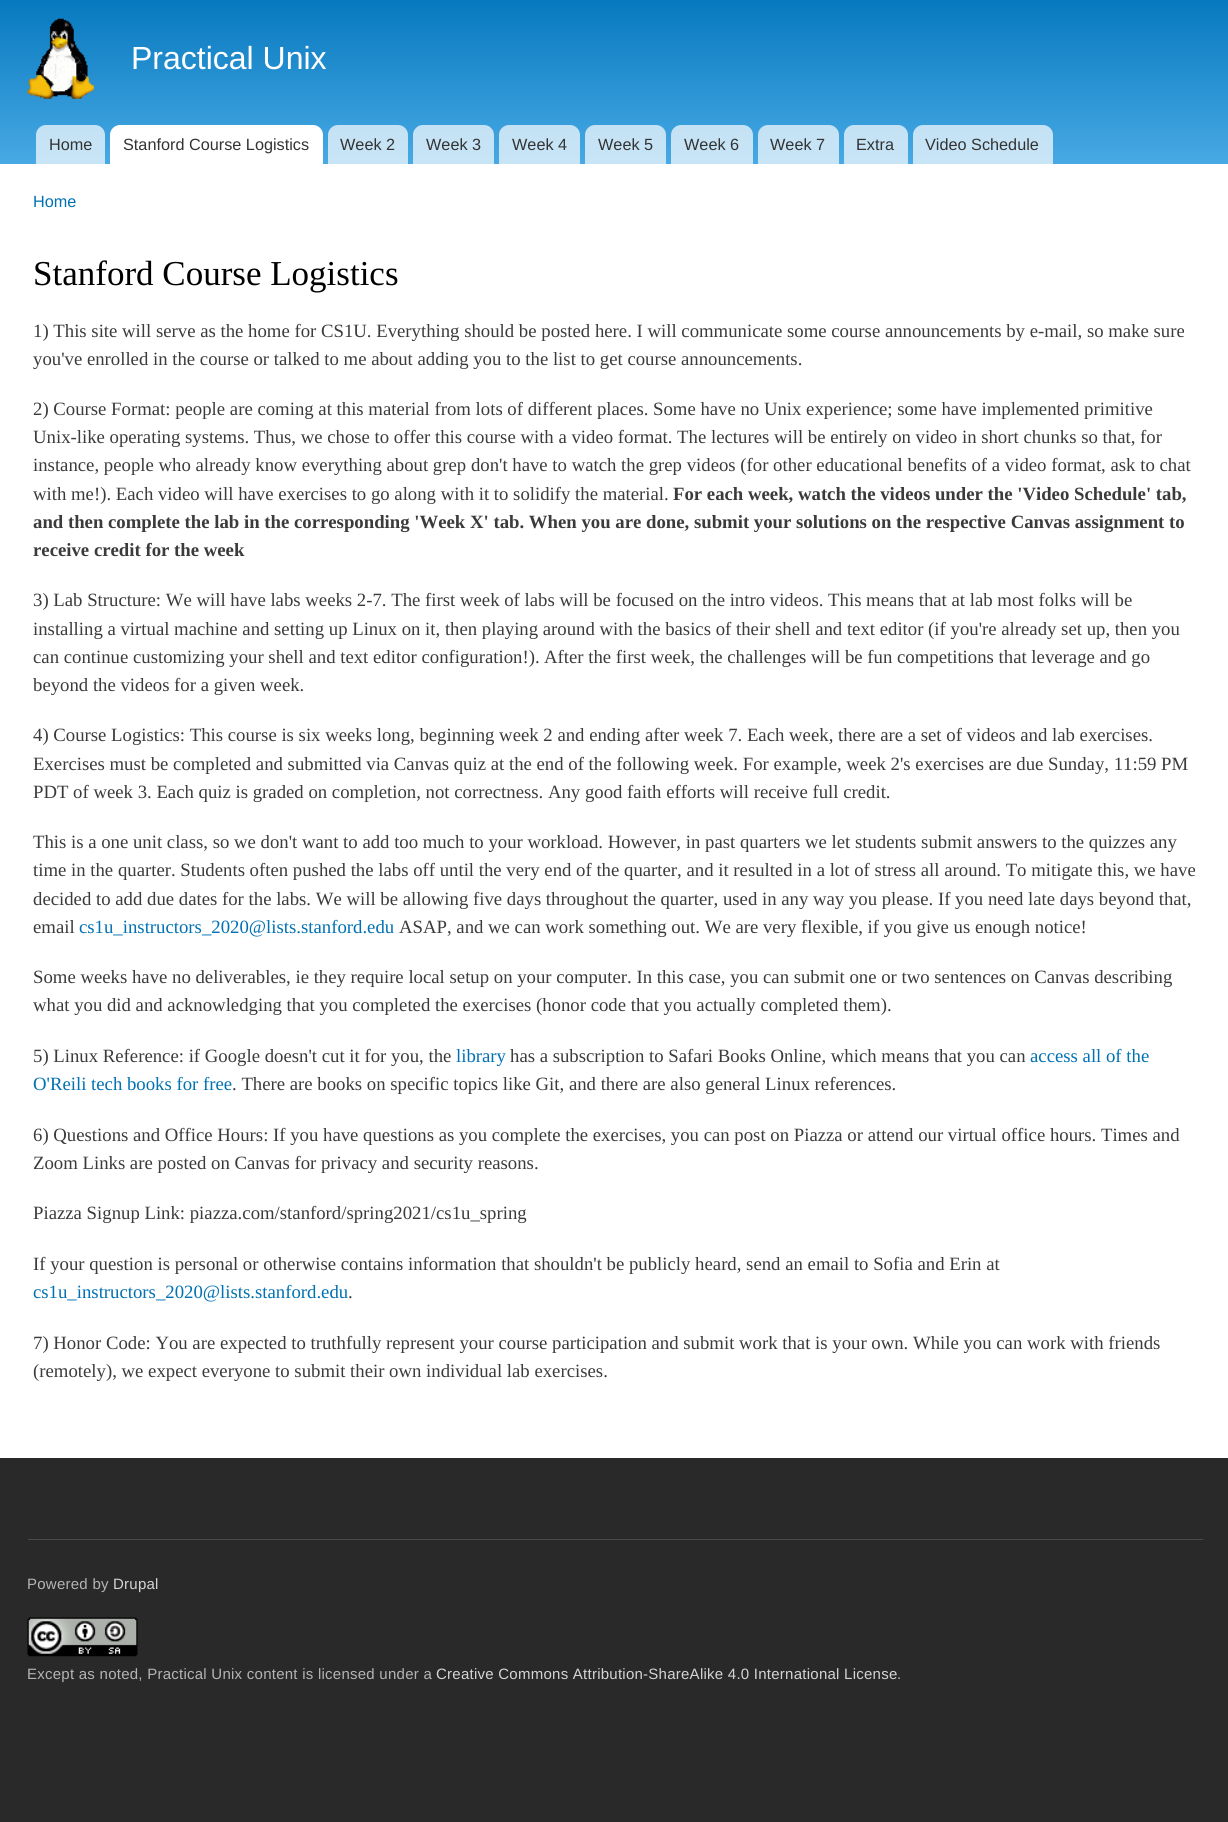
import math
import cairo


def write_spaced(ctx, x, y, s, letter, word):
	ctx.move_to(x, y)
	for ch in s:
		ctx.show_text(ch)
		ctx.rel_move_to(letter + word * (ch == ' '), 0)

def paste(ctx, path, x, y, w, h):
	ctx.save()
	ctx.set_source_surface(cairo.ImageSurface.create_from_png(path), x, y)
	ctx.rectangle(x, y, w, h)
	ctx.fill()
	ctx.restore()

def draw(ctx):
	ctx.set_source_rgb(0.161, 0.161, 0.161)
	ctx.paint()
	ctx.set_source_rgb(1, 1, 1)
	ctx.rectangle(0, 164, 1228, 1294)
	ctx.fill()
	gradient = cairo.LinearGradient(614, 0, 614, 164)
	gradient.add_color_stop_rgba(0, 0.027, 0.475, 0.749, 1)
	gradient.add_color_stop_rgba(1, 0.282, 0.663, 0.894, 1)
	ctx.set_source(gradient)
	ctx.rectangle(0, 0, 1228, 164)
	ctx.fill()
	paste(ctx, 'media/1.png', 27, 18, 67, 81)
	ctx.select_font_face('Liberation Sans')
	ctx.set_font_size(32)
	ctx.set_source_rgb(1, 0.996, 1)
	ctx.move_to(131, 69)
	ctx.show_text('Practical Unix')
	ctx.set_source_rgba(1, 1, 1, 0.7)
	ctx.new_path()
	ctx.move_to(46, 125)
	ctx.line_to(95, 125)
	ctx.curve_to(100.5, 125, 105, 129.5, 105, 135)
	ctx.line_to(105, 164)
	ctx.line_to(36, 164)
	ctx.line_to(36, 135)
	ctx.curve_to(36, 129.5, 40.5, 125, 46, 125)
	ctx.close_path()
	ctx.fill()
	ctx.set_font_size(16.25)
	ctx.set_source_rgb(0.2, 0.2, 0.2)
	ctx.move_to(49, 150)
	ctx.show_text('Home')
	ctx.set_source_rgb(1, 1, 1)
	ctx.new_path()
	ctx.move_to(120, 125)
	ctx.line_to(313, 125)
	ctx.curve_to(318.5, 125, 323, 129.5, 323, 135)
	ctx.line_to(323, 164)
	ctx.line_to(110, 164)
	ctx.line_to(110, 135)
	ctx.curve_to(110, 129.5, 114.5, 125, 120, 125)
	ctx.close_path()
	ctx.fill()
	ctx.set_source_rgb(0.2, 0.2, 0.2)
	ctx.move_to(123, 150)
	ctx.show_text('Stanford Course Logistics')
	ctx.set_source_rgba(1, 1, 1, 0.7)
	ctx.new_path()
	ctx.move_to(338, 125)
	ctx.line_to(398, 125)
	ctx.curve_to(403.5, 125, 408, 129.5, 408, 135)
	ctx.line_to(408, 164)
	ctx.line_to(328, 164)
	ctx.line_to(328, 135)
	ctx.curve_to(328, 129.5, 332.5, 125, 338, 125)
	ctx.close_path()
	ctx.fill()
	ctx.set_source_rgb(0.2, 0.2, 0.2)
	ctx.move_to(340, 150)
	ctx.show_text('Week 2')
	ctx.set_source_rgba(1, 1, 1, 0.7)
	ctx.new_path()
	ctx.move_to(423, 125)
	ctx.line_to(484, 125)
	ctx.curve_to(489.5, 125, 494, 129.5, 494, 135)
	ctx.line_to(494, 164)
	ctx.line_to(413, 164)
	ctx.line_to(413, 135)
	ctx.curve_to(413, 129.5, 417.5, 125, 423, 125)
	ctx.close_path()
	ctx.fill()
	ctx.set_source_rgb(0.2, 0.2, 0.2)
	ctx.move_to(426, 150)
	ctx.show_text('Week 3')
	ctx.set_source_rgba(1, 1, 1, 0.7)
	ctx.new_path()
	ctx.move_to(509, 125)
	ctx.line_to(570, 125)
	ctx.curve_to(575.5, 125, 580, 129.5, 580, 135)
	ctx.line_to(580, 164)
	ctx.line_to(499, 164)
	ctx.line_to(499, 135)
	ctx.curve_to(499, 129.5, 503.5, 125, 509, 125)
	ctx.close_path()
	ctx.fill()
	ctx.set_source_rgb(0.2, 0.2, 0.2)
	ctx.move_to(512, 150)
	ctx.show_text('Week 4')
	ctx.set_source_rgba(1, 1, 1, 0.7)
	ctx.new_path()
	ctx.move_to(595, 125)
	ctx.line_to(656, 125)
	ctx.curve_to(661.5, 125, 666, 129.5, 666, 135)
	ctx.line_to(666, 164)
	ctx.line_to(585, 164)
	ctx.line_to(585, 135)
	ctx.curve_to(585, 129.5, 589.5, 125, 595, 125)
	ctx.close_path()
	ctx.fill()
	ctx.set_source_rgb(0.2, 0.2, 0.2)
	ctx.move_to(598, 150)
	ctx.show_text('Week 5')
	ctx.set_source_rgba(1, 1, 1, 0.7)
	ctx.new_path()
	ctx.move_to(681, 125)
	ctx.line_to(743, 125)
	ctx.curve_to(748.5, 125, 753, 129.5, 753, 135)
	ctx.line_to(753, 164)
	ctx.line_to(671, 164)
	ctx.line_to(671, 135)
	ctx.curve_to(671, 129.5, 675.5, 125, 681, 125)
	ctx.close_path()
	ctx.fill()
	ctx.set_source_rgb(0.2, 0.2, 0.2)
	ctx.move_to(684, 150)
	ctx.show_text('Week 6')
	ctx.set_source_rgba(1, 1, 1, 0.7)
	ctx.new_path()
	ctx.move_to(768, 125)
	ctx.line_to(829, 125)
	ctx.curve_to(834.5, 125, 839, 129.5, 839, 135)
	ctx.line_to(839, 164)
	ctx.line_to(758, 164)
	ctx.line_to(758, 135)
	ctx.curve_to(758, 129.5, 762.5, 125, 768, 125)
	ctx.close_path()
	ctx.fill()
	ctx.set_source_rgb(0.2, 0.2, 0.2)
	ctx.move_to(770, 150)
	ctx.show_text('Week 7')
	ctx.set_source_rgba(1, 1, 1, 0.7)
	ctx.new_path()
	ctx.move_to(854, 125)
	ctx.line_to(898, 125)
	ctx.curve_to(903.5, 125, 908, 129.5, 908, 135)
	ctx.line_to(908, 164)
	ctx.line_to(844, 164)
	ctx.line_to(844, 135)
	ctx.curve_to(844, 129.5, 848.5, 125, 854, 125)
	ctx.close_path()
	ctx.fill()
	ctx.set_source_rgb(0.2, 0.2, 0.2)
	ctx.move_to(856, 150)
	ctx.show_text('Extra')
	ctx.set_source_rgba(1, 1, 1, 0.7)
	ctx.new_path()
	ctx.move_to(923, 125)
	ctx.line_to(1043, 125)
	ctx.curve_to(1048.5, 125, 1053, 129.5, 1053, 135)
	ctx.line_to(1053, 164)
	ctx.line_to(913, 164)
	ctx.line_to(913, 135)
	ctx.curve_to(913, 129.5, 917.5, 125, 923, 125)
	ctx.close_path()
	ctx.fill()
	ctx.set_source_rgb(0.2, 0.2, 0.2)
	ctx.move_to(925, 150)
	ctx.show_text('Video Schedule')
	ctx.set_source_rgb(0, 0.443, 0.702)
	ctx.move_to(33, 207)
	ctx.show_text('Home')
	ctx.select_font_face('Liberation Serif')
	ctx.set_font_size(35)
	ctx.set_source_rgb(0, 0, 0)
	ctx.move_to(33, 285)
	ctx.show_text('Stanford Course Logistics')
	ctx.set_font_size(18.75)
	ctx.set_source_rgb(0.231, 0.231, 0.231)
	for x, y, s in [
		(33, 337, '1) This site will serve as the home for CS1U. Everything should be posted here. I will communicate some course announcements by e-mail, so make sure'),
		(33, 365, 'you\'ve enrolled in the course or talked to me about adding you to the list to get course announcements.'),
		(33, 415, '2) Course Format: people are coming at this material from lots of different places.'),
		(653, 415, 'Some have no Unix experience; some have implemented primitive'),
		(33, 443, 'Unix-like operating systems. Thus, we chose to offer this course with a video format. The lectures will be entirely on video in short chunks so that, for'),
		(33, 471, 'instance, people who already know everything about grep don\'t have to watch the grep videos (for other educational benefits of a video format, ask to chat'),
		(33, 500, 'with me!). Each video will have exercises to go along with it to solidify the material.'),
	]:
		ctx.move_to(x, y)
		ctx.show_text(s)
	ctx.select_font_face('Liberation Serif', cairo.FONT_SLANT_NORMAL, cairo.FONT_WEIGHT_BOLD)
	for x, y, s in [
		(673, 500, 'For each week, watch the videos under the \'Video Schedule\' tab,'),
		(33, 528, 'and then complete the lab in the corresponding \'Week X\' tab. When you are done, submit your solutions on the respective Canvas assignment to'),
		(33, 556, 'receive credit for the week'),
	]:
		ctx.move_to(x, y)
		ctx.show_text(s)
	ctx.select_font_face('Liberation Serif')
	for x, y, s in [
		(33, 606, '3) Lab Structure: We will have labs weeks 2-7. The first week of labs will be focused on the intro videos. This means that at lab most folks will be'),
		(33, 635, 'installing a virtual machine and setting up Linux on it, then playing around with the basics of their shell and text editor (if you\'re already set up, then you'),
		(33, 663, 'can continue customizing your shell and text editor configuration!).'),
		(544, 663, 'After the first week, the challenges will be fun competitions that leverage and go'),
		(33, 691, 'beyond the videos for a given week.'),
		(33, 741, '4) Course Logistics: This course is six weeks long, beginning week 2 and ending after week 7. Each week, there are a set of videos and lab exercises.'),
		(33, 770, 'Exercises must be completed and submitted via Canvas quiz at the end of the following week. For example, week 2\'s exercises are due Sunday, 11:59 PM'),
		(33, 798, 'PDT of week 3. Each quiz is graded on completion, not correctness. Any good faith efforts will receive full credit.'),
		(33, 848, 'This is a one unit class, so we don\'t want to add too much to your workload. However, in past quarters we let students submit answers to the quizzes any'),
		(33, 876, 'time in the quarter. Students often pushed the labs off until the very end of the quarter, and it resulted in a lot of stress all around. To mitigate this, we have'),
		(33, 905, 'decided to add due dates for the labs. We will be allowing five days throughout the quarter, used in any way you please. If you need late days beyond that,'),
		(33, 933, 'email'),
	]:
		ctx.move_to(x, y)
		ctx.show_text(s)
	ctx.set_source_rgb(0, 0.443, 0.702)
	ctx.move_to(79, 933)
	ctx.show_text('cs1u_instructors_2020@lists.stanford.edu')
	ctx.set_source_rgb(0.231, 0.231, 0.231)
	for x, y, s in [
		(399, 933, 'ASAP, and we can work something out. We are very flexible, if you give us enough notice!'),
		(33, 983, 'Some weeks have no deliverables, ie they require local setup on your computer. In this case, you can submit one or two sentences on Canvas describing'),
		(33, 1011, 'what you did and acknowledging that you completed the exercises (honor code that you actually completed them).'),
		(33, 1062, '5) Linux Reference: if Google doesn\'t cut it for you, the'),
	]:
		ctx.move_to(x, y)
		ctx.show_text(s)
	ctx.set_source_rgb(0, 0.443, 0.702)
	ctx.move_to(456, 1062)
	ctx.show_text('library')
	ctx.set_source_rgb(0.231, 0.231, 0.231)
	ctx.move_to(510, 1062)
	ctx.show_text('has a subscription to Safari Books Online, which means that you can')
	ctx.set_source_rgb(0, 0.443, 0.702)
	ctx.move_to(1030, 1062)
	ctx.show_text('access all of the')
	ctx.move_to(33, 1090)
	ctx.show_text('O\'Reili tech books for free')
	ctx.set_source_rgb(0.231, 0.231, 0.231)
	for x, y, s in [
		(232, 1090, '. There are books on specific topics like Git, and there are also general Linux references.'),
		(33, 1141, '6) Questions and Office Hours: If you have questions as you complete the exercises, you can post on Piazza or attend our virtual office hours. Times and'),
		(33, 1169, 'Zoom Links are posted on Canvas for privacy and security reasons.'),
		(33, 1219, 'Piazza Signup Link: piazza.com/stanford/spring2021/cs1u_spring'),
		(33, 1270, 'If your question is personal or otherwise contains information that shouldn\'t be publicly heard, send an email to Sofia and Erin at'),
	]:
		ctx.move_to(x, y)
		ctx.show_text(s)
	ctx.set_source_rgb(0, 0.443, 0.702)
	ctx.move_to(33, 1298)
	ctx.show_text('cs1u_instructors_2020@lists.stanford.edu')
	ctx.set_source_rgb(0.231, 0.231, 0.231)
	for x, y, s in [
		(348, 1298, '.'),
		(33, 1349, '7) Honor Code: You are expected to truthfully represent your course participation and submit work that is your own. While you can work with friends'),
		(33, 1377, '(remotely), we expect everyone to submit their own individual lab exercises.'),
	]:
		ctx.move_to(x, y)
		ctx.show_text(s)
	ctx.set_source_rgb(0.286, 0.286, 0.286)
	ctx.rectangle(28, 1539, 1175, 1)
	ctx.fill()
	ctx.select_font_face('Liberation Sans')
	ctx.set_font_size(15)
	ctx.set_source_rgb(0.706, 0.706, 0.706)
	write_spaced(ctx, 27, 1589, 'Powered by', 0.25, 0)
	ctx.set_source_rgb(0.831, 0.831, 0.831)
	write_spaced(ctx, 113, 1589, 'Drupal', 0.25, 0)
	paste(ctx, 'media/2.png', 27, 1617, 111, 40)
	ctx.set_source_rgb(0.706, 0.706, 0.706)
	write_spaced(ctx, 27, 1679, 'Except as noted, Practical Unix content is licensed under a', 0.25, 0)
	ctx.set_source_rgb(0.831, 0.831, 0.831)
	write_spaced(ctx, 436, 1679, 'Creative Commons Attribution-ShareAlike 4.0 International License', 0.25, 0)
	ctx.set_source_rgb(0.706, 0.706, 0.706)
	write_spaced(ctx, 897, 1679, '.', 0.25, 0)


surface = cairo.ImageSurface(cairo.FORMAT_RGB24, 1228, 1822)
ctx = cairo.Context(surface)
options = cairo.FontOptions()
options.set_hint_metrics(cairo.HINT_METRICS_OFF)
options.set_hint_style(cairo.HINT_STYLE_NONE)
ctx.set_font_options(options)
ctx.set_miter_limit(4)
draw(ctx)
surface.write_to_png('image.png')
